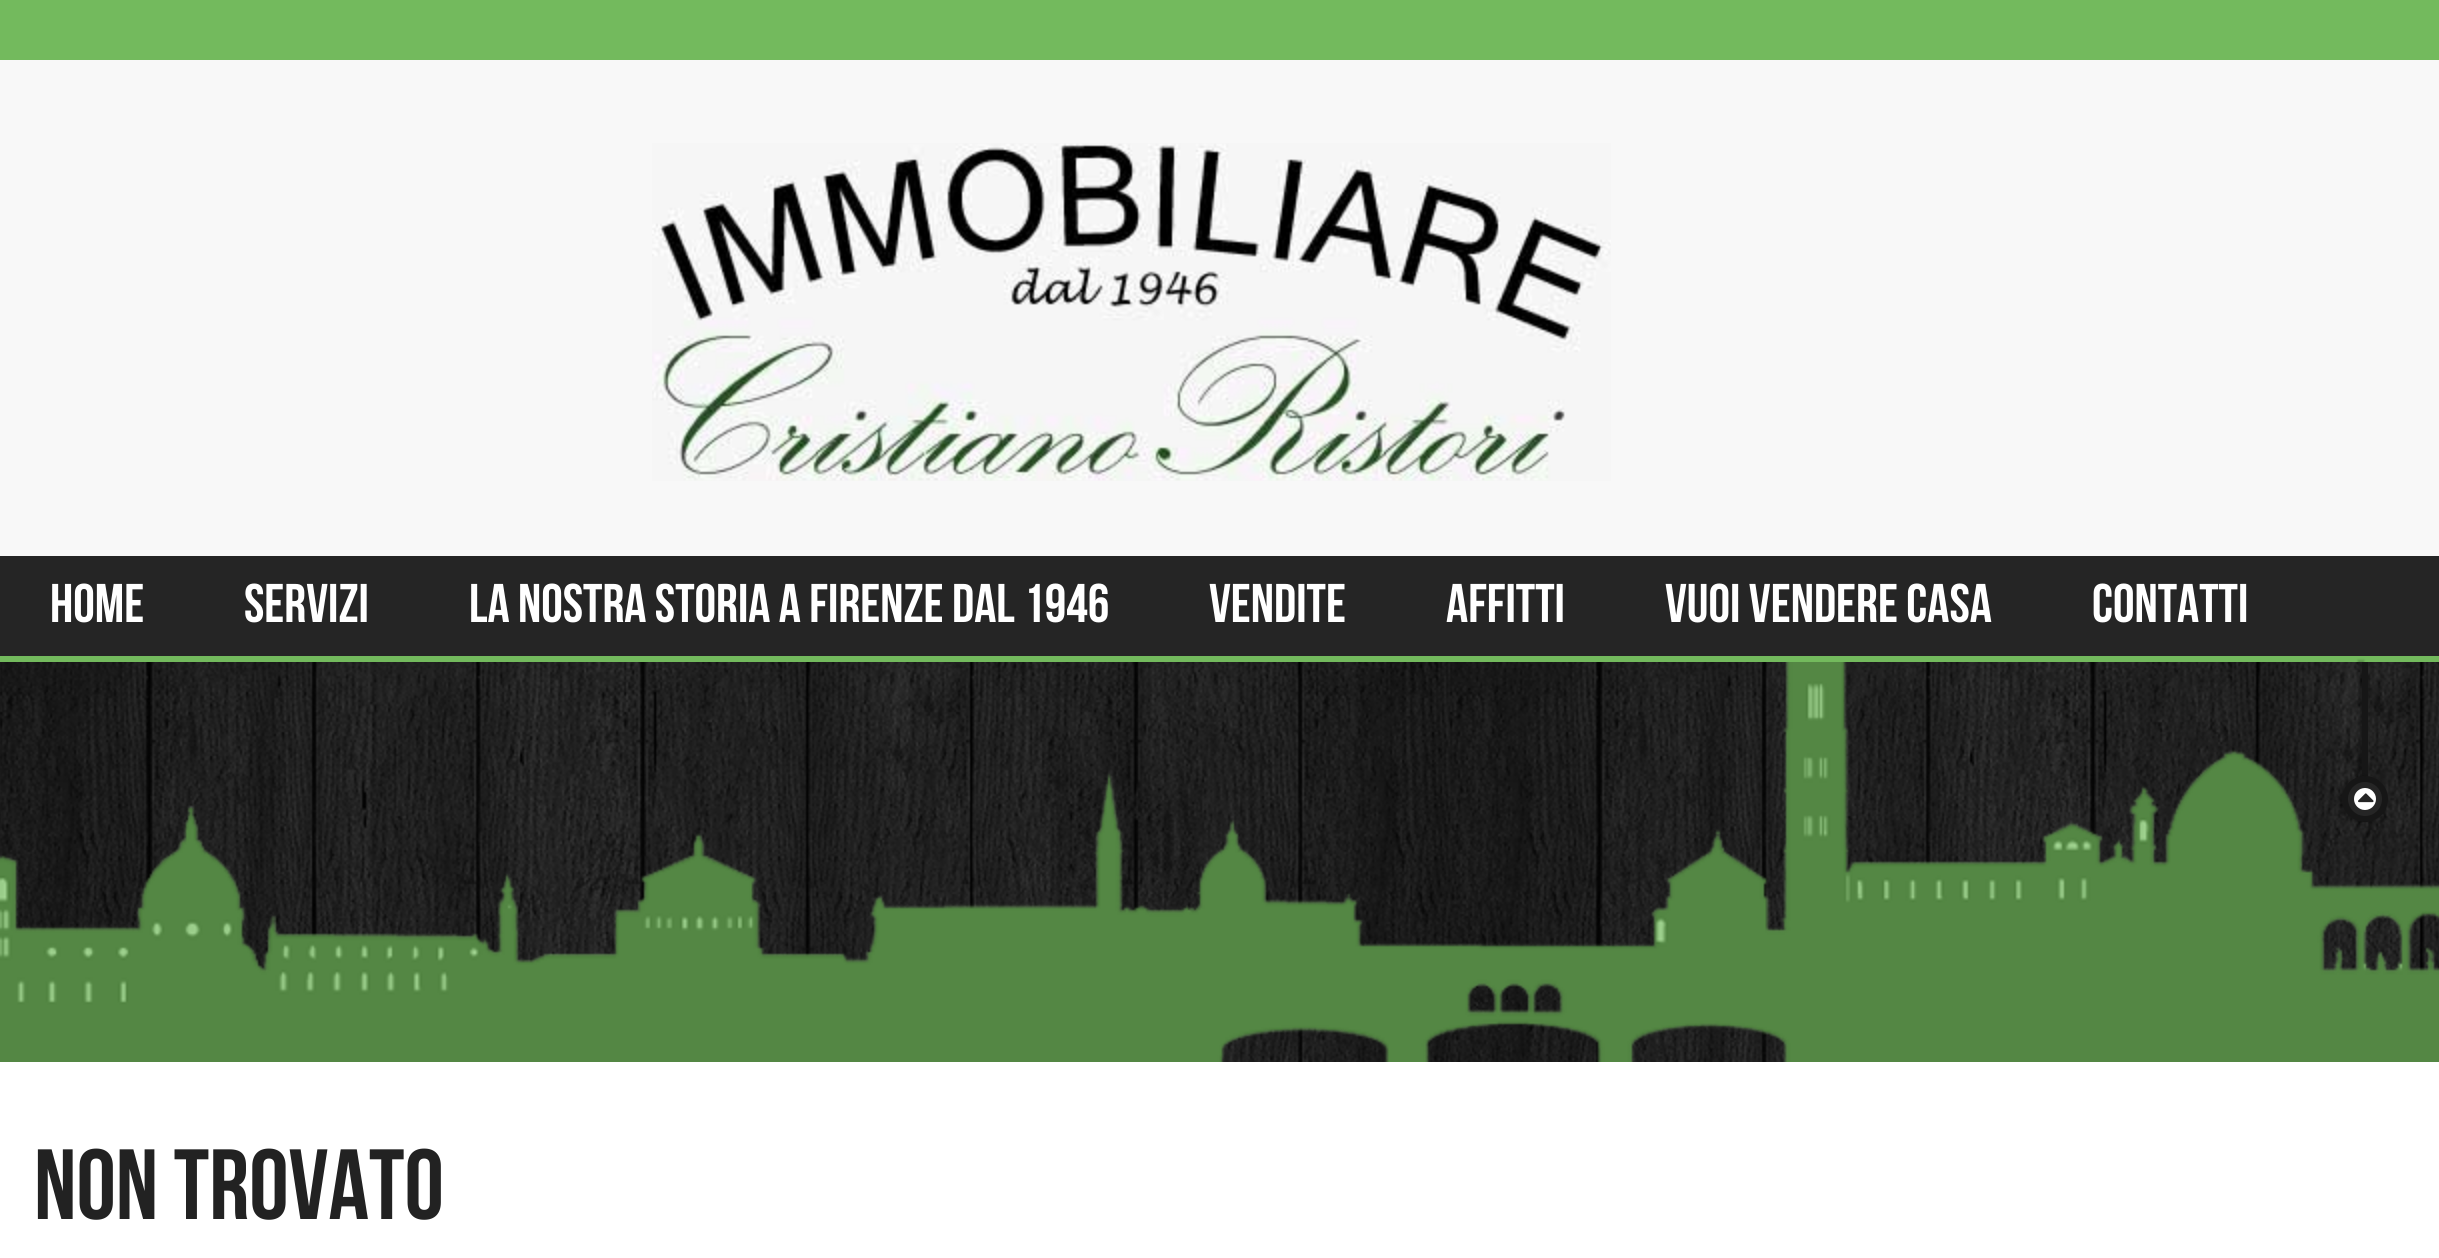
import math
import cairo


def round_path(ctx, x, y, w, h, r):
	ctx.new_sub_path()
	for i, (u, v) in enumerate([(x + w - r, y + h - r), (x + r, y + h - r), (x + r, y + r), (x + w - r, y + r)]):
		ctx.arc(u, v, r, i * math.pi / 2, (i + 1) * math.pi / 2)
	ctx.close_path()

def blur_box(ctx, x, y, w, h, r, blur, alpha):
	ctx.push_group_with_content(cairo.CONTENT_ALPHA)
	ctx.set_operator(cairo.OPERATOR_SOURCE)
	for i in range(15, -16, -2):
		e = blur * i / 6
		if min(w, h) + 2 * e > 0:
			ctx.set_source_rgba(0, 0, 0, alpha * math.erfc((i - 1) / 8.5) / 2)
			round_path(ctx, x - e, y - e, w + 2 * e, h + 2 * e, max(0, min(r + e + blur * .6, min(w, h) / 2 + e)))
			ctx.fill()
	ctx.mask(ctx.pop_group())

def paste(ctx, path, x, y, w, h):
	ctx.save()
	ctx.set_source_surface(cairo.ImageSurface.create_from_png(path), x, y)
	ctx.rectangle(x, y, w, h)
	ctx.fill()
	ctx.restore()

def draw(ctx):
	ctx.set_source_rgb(1, 1, 1)
	ctx.paint()
	paste(ctx, 'media/1.png', 0, 662, 2439, 400)
	ctx.set_source_rgb(0.451, 0.729, 0.365)
	ctx.rectangle(0, 0, 2439, 60)
	ctx.fill()
	ctx.set_source_rgb(0.969, 0.969, 0.969)
	ctx.rectangle(0, 60, 2439, 496)
	ctx.fill()
	paste(ctx, 'media/2.png', 652, 143, 959, 338)
	ctx.set_source_rgb(0.145, 0.145, 0.145)
	ctx.rectangle(0, 556, 2439, 100)
	ctx.fill()
	ctx.set_source_rgb(0.451, 0.729, 0.365)
	ctx.rectangle(0, 656, 2439, 6)
	ctx.fill()
	ctx.select_font_face('Bebas Neue')
	ctx.set_font_size(54.4)
	ctx.set_source_rgb(1, 1, 1)
	for x, y, s in [
		(50, 622, 'Home'),
		(244, 622, 'Servizi'),
		(469, 622, 'La nostra storia a firenze dal 1946'),
		(1209, 622, 'Vendite'),
		(1446, 622, 'Affitti'),
		(1665, 622, 'Vuoi vendere casa'),
		(2092, 622, 'Contatti'),
	]:
		ctx.move_to(x, y)
		ctx.show_text(s)
	paste(ctx, 'media/4.png', 0, 662, 2439, 400)
	ctx.set_source_rgb(0, 0, 0)
	blur_box(ctx, 2358, 660, 6, 160, 0, 1, 0.2)
	ctx.set_source_rgb(0.086, 0.086, 0.086)
	ctx.rectangle(2362, 662, 6, 160)
	ctx.fill()
	ctx.set_source_rgb(0, 0, 0)
	blur_box(ctx, 2338, 776, 46, 46, 23, 2, 0.3)
	ctx.set_source_rgb(0.086, 0.086, 0.086)
	ctx.arc(2365, 799, 23, 0, 2 * math.pi)
	ctx.fill()
	ctx.set_source_rgb(0.145, 0.145, 0.145)
	ctx.arc(2365, 799, 17, 0, 2 * math.pi)
	ctx.fill()
	ctx.set_source_rgb(1, 1, 1)
	ctx.arc(2365, 799, 11, 0, 2 * math.pi)
	ctx.fill()
	paste(ctx, 'media/3.png', 2358, 793, 16, 10)
	ctx.set_font_size(99.5)
	ctx.set_source_rgb(0.133, 0.133, 0.133)
	ctx.move_to(34, 1219)
	ctx.show_text('Non trovato')


surface = cairo.ImageSurface(cairo.FORMAT_RGB24, 2439, 1258)
ctx = cairo.Context(surface)
options = cairo.FontOptions()
options.set_hint_metrics(cairo.HINT_METRICS_OFF)
options.set_hint_style(cairo.HINT_STYLE_NONE)
ctx.set_font_options(options)
ctx.set_miter_limit(4)
draw(ctx)
surface.write_to_png('image.png')
